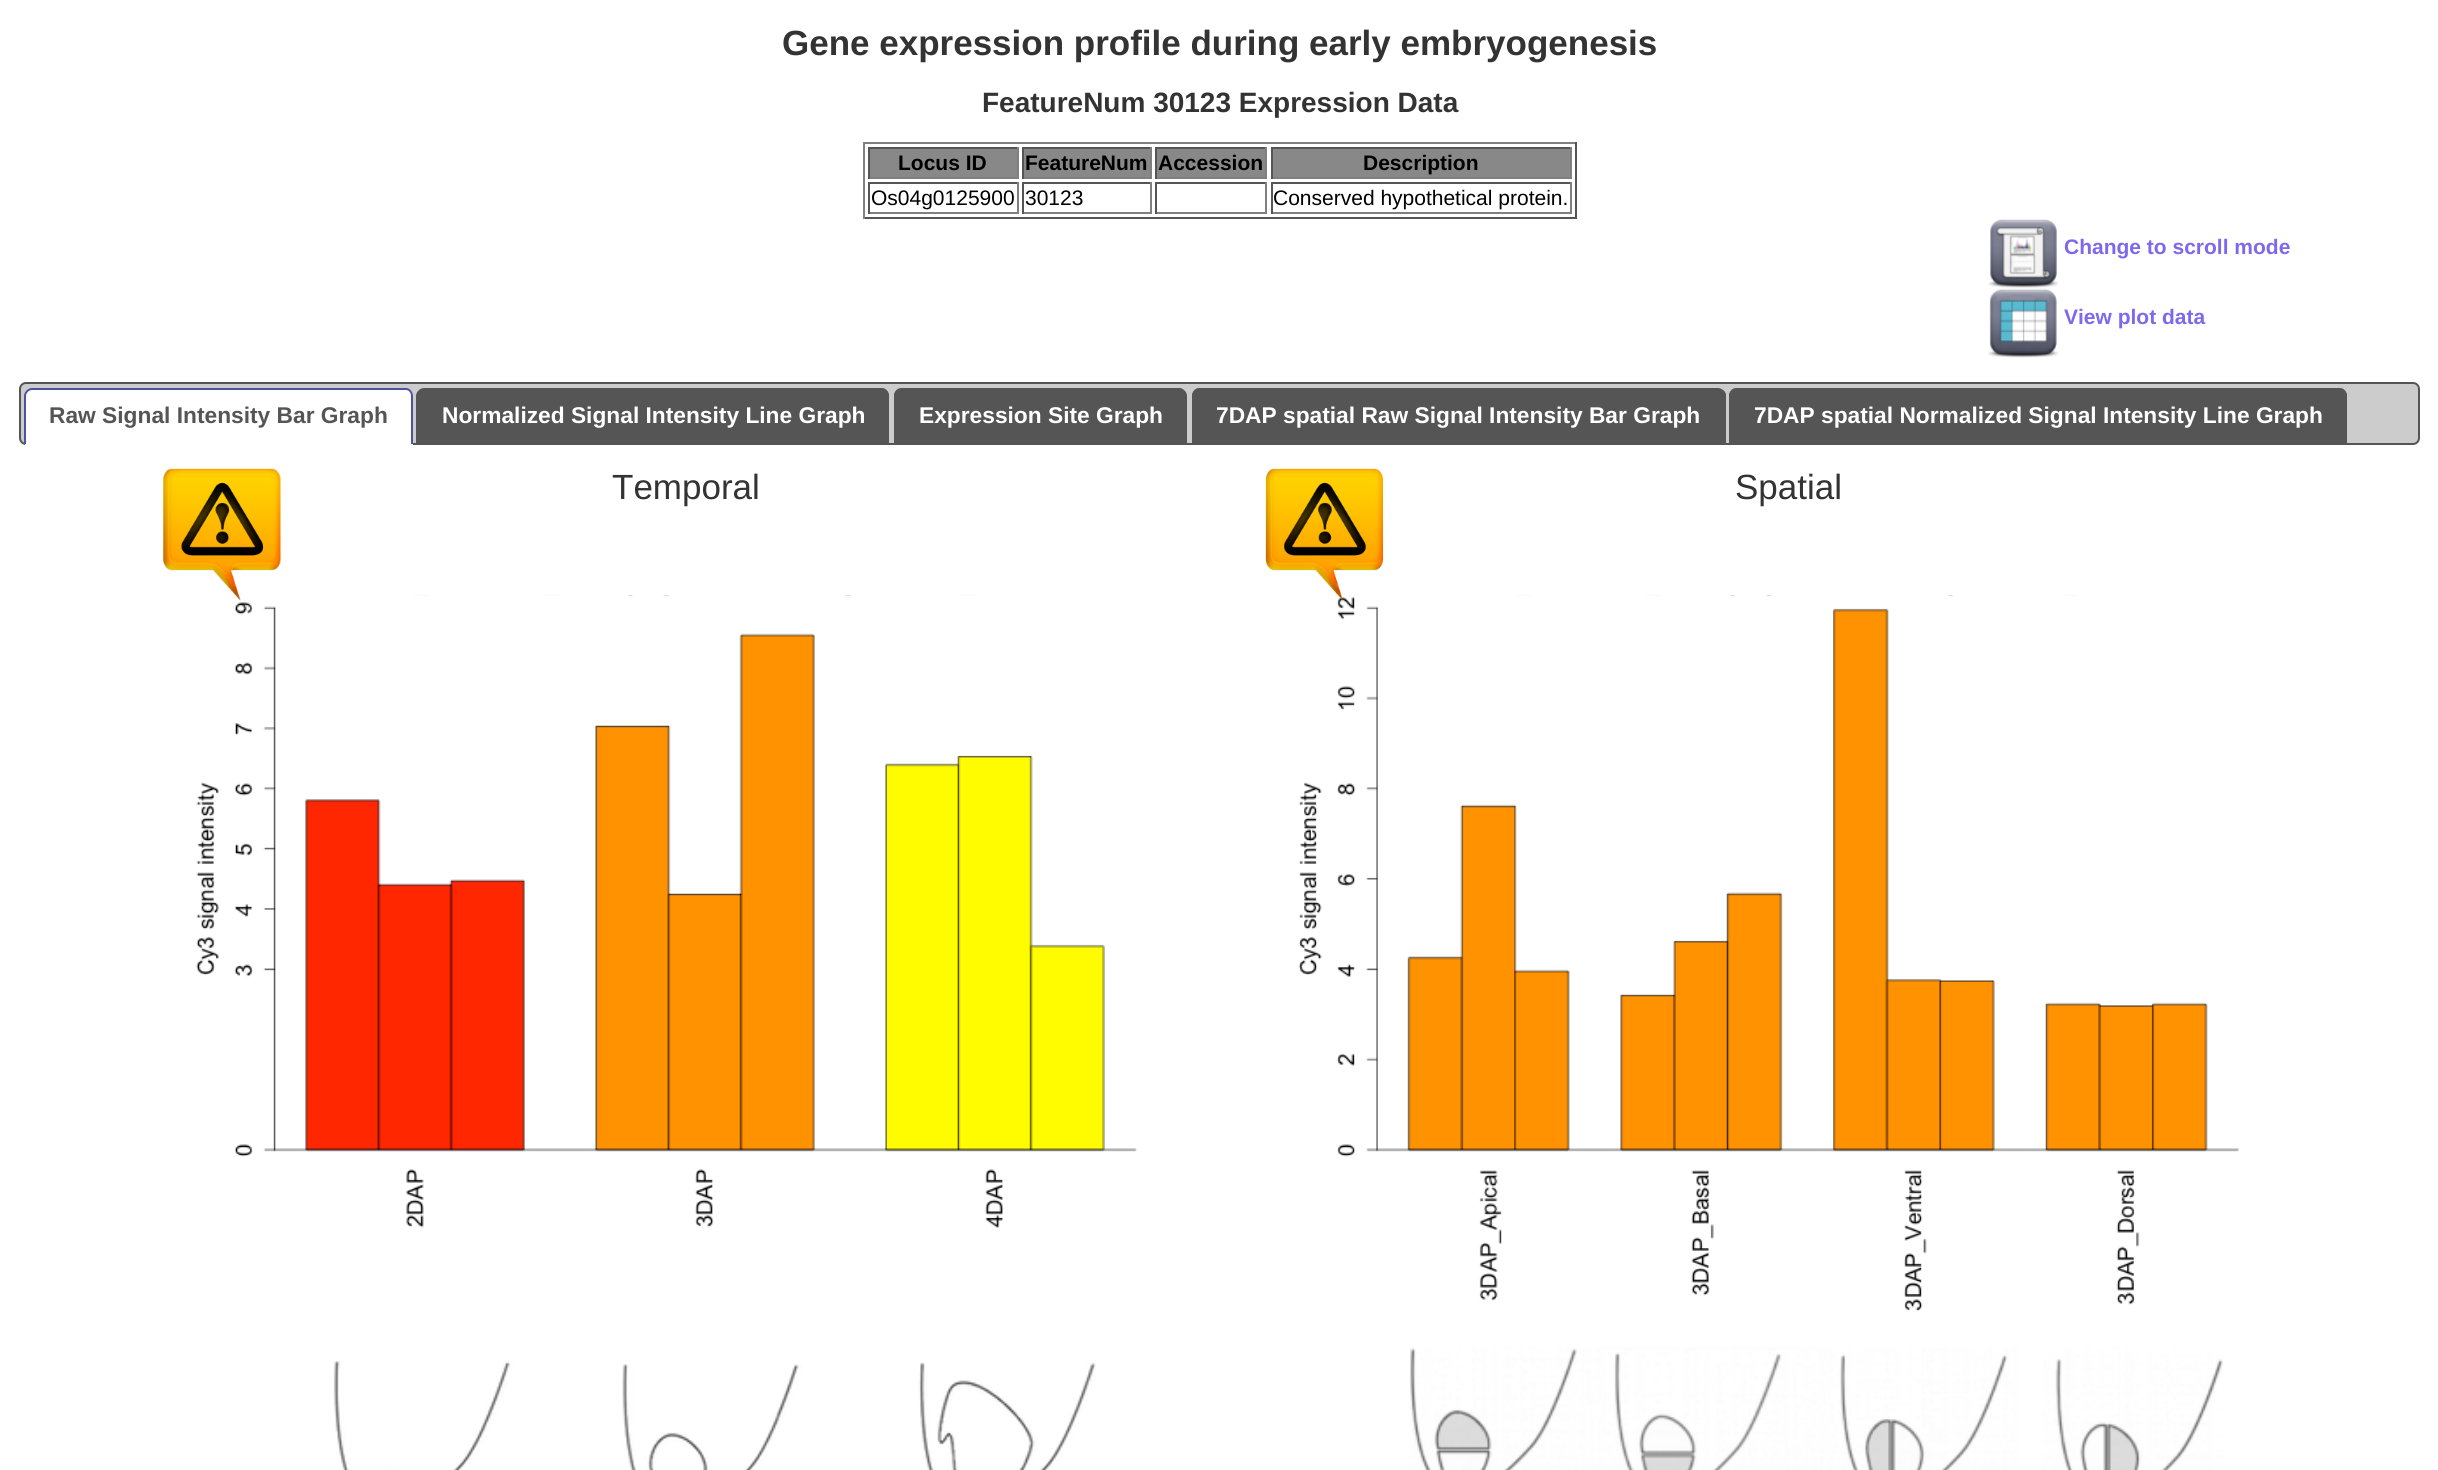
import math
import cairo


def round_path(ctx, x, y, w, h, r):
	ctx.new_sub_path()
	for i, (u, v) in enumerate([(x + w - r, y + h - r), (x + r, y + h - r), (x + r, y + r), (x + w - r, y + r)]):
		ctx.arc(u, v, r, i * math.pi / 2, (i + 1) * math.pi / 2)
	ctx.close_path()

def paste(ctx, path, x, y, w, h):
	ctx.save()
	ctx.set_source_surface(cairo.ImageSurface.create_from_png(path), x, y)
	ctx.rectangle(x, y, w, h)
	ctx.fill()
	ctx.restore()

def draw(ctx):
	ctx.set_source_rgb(1, 1, 1)
	ctx.paint()
	ctx.select_font_face('Liberation Sans', cairo.FONT_SLANT_NORMAL, cairo.FONT_WEIGHT_BOLD)
	ctx.set_font_size(35)
	ctx.set_source_rgb(0.2, 0.2, 0.2)
	ctx.move_to(782, 55)
	ctx.show_text('Gene expression profile during early embryogenesis')
	ctx.set_font_size(28)
	ctx.move_to(982, 112)
	ctx.show_text('FeatureNum 30123 Expression Data')
	ctx.set_source_rgb(0.502, 0.502, 0.502)
	ctx.rectangle(863, 142, 714, 2)
	ctx.fill()
	ctx.set_source_rgb(0.333, 0.333, 0.333)
	ctx.rectangle(1575, 142, 2, 77)
	ctx.rectangle(863, 217, 714, 2)
	ctx.fill()
	ctx.set_source_rgb(0.502, 0.502, 0.502)
	ctx.rectangle(863, 142, 2, 77)
	ctx.fill()
	ctx.set_source_rgb(0.533, 0.533, 0.533)
	ctx.rectangle(870, 149, 147, 28)
	ctx.fill()
	ctx.set_source_rgb(0.333, 0.333, 0.333)
	ctx.rectangle(868, 147, 151, 2)
	ctx.fill()
	ctx.set_source_rgb(0.502, 0.502, 0.502)
	ctx.rectangle(1017, 147, 2, 32)
	ctx.rectangle(868, 177, 151, 2)
	ctx.fill()
	ctx.set_source_rgb(0.333, 0.333, 0.333)
	ctx.rectangle(868, 147, 2, 32)
	ctx.fill()
	ctx.set_font_size(21)
	ctx.set_source_rgb(0, 0, 0)
	ctx.move_to(898, 170)
	ctx.show_text('Locus ID')
	ctx.set_source_rgb(0.533, 0.533, 0.533)
	ctx.rectangle(1024, 149, 126, 28)
	ctx.fill()
	ctx.set_source_rgb(0.333, 0.333, 0.333)
	ctx.rectangle(1022, 147, 130, 2)
	ctx.fill()
	ctx.set_source_rgb(0.502, 0.502, 0.502)
	ctx.rectangle(1150, 147, 2, 32)
	ctx.rectangle(1022, 177, 130, 2)
	ctx.fill()
	ctx.set_source_rgb(0.333, 0.333, 0.333)
	ctx.rectangle(1022, 147, 2, 32)
	ctx.fill()
	ctx.set_source_rgb(0, 0, 0)
	ctx.move_to(1025, 170)
	ctx.show_text('FeatureNum')
	ctx.set_source_rgb(0.533, 0.533, 0.533)
	ctx.rectangle(1157, 149, 108, 28)
	ctx.fill()
	ctx.set_source_rgb(0.333, 0.333, 0.333)
	ctx.rectangle(1155, 147, 112, 2)
	ctx.fill()
	ctx.set_source_rgb(0.502, 0.502, 0.502)
	ctx.rectangle(1265, 147, 2, 32)
	ctx.rectangle(1155, 177, 112, 2)
	ctx.fill()
	ctx.set_source_rgb(0.333, 0.333, 0.333)
	ctx.rectangle(1155, 147, 2, 32)
	ctx.fill()
	ctx.set_source_rgb(0, 0, 0)
	ctx.move_to(1158, 170)
	ctx.show_text('Accession')
	ctx.set_source_rgb(0.533, 0.533, 0.533)
	ctx.rectangle(1273, 149, 297, 28)
	ctx.fill()
	ctx.set_source_rgb(0.333, 0.333, 0.333)
	ctx.rectangle(1271, 147, 301, 2)
	ctx.fill()
	ctx.set_source_rgb(0.502, 0.502, 0.502)
	ctx.rectangle(1570, 147, 2, 32)
	ctx.rectangle(1271, 177, 301, 2)
	ctx.fill()
	ctx.set_source_rgb(0.333, 0.333, 0.333)
	ctx.rectangle(1271, 147, 2, 32)
	ctx.fill()
	ctx.set_source_rgb(0, 0, 0)
	ctx.move_to(1363, 170)
	ctx.show_text('Description')
	ctx.set_source_rgb(0.333, 0.333, 0.333)
	ctx.rectangle(868, 182, 151, 2)
	ctx.fill()
	ctx.set_source_rgb(0.502, 0.502, 0.502)
	ctx.rectangle(1017, 182, 2, 32)
	ctx.rectangle(868, 212, 151, 2)
	ctx.fill()
	ctx.set_source_rgb(0.333, 0.333, 0.333)
	ctx.rectangle(868, 182, 2, 32)
	ctx.fill()
	ctx.select_font_face('Liberation Sans')
	ctx.set_source_rgb(0, 0, 0)
	ctx.move_to(871, 205)
	ctx.show_text('Os04g0125900')
	ctx.set_source_rgb(0.333, 0.333, 0.333)
	ctx.rectangle(1022, 182, 130, 2)
	ctx.fill()
	ctx.set_source_rgb(0.502, 0.502, 0.502)
	ctx.rectangle(1150, 182, 2, 32)
	ctx.rectangle(1022, 212, 130, 2)
	ctx.fill()
	ctx.set_source_rgb(0.333, 0.333, 0.333)
	ctx.rectangle(1022, 182, 2, 32)
	ctx.fill()
	ctx.set_source_rgb(0, 0, 0)
	ctx.move_to(1025, 205)
	ctx.show_text('30123')
	ctx.set_source_rgb(0.333, 0.333, 0.333)
	ctx.rectangle(1155, 182, 112, 2)
	ctx.fill()
	ctx.set_source_rgb(0.502, 0.502, 0.502)
	ctx.rectangle(1265, 182, 2, 32)
	ctx.rectangle(1155, 212, 112, 2)
	ctx.fill()
	ctx.set_source_rgb(0.333, 0.333, 0.333)
	ctx.rectangle(1155, 182, 2, 32)
	ctx.rectangle(1271, 182, 301, 2)
	ctx.fill()
	ctx.set_source_rgb(0.502, 0.502, 0.502)
	ctx.rectangle(1570, 182, 2, 32)
	ctx.rectangle(1271, 212, 301, 2)
	ctx.fill()
	ctx.set_source_rgb(0.333, 0.333, 0.333)
	ctx.rectangle(1271, 182, 2, 32)
	ctx.fill()
	ctx.set_source_rgb(0, 0, 0)
	ctx.move_to(1273, 205)
	ctx.show_text('Conserved hypothetical protein.')
	paste(ctx, 'media/1.png', 1988, 219, 70, 69)
	ctx.select_font_face('Liberation Sans', cairo.FONT_SLANT_NORMAL, cairo.FONT_WEIGHT_BOLD)
	ctx.set_source_rgb(0.494, 0.408, 0.933)
	ctx.move_to(2064, 254)
	ctx.show_text('Change to scroll mode')
	paste(ctx, 'media/2.png', 1988, 288, 70, 70)
	ctx.move_to(2064, 324)
	ctx.show_text('View plot data')
	ctx.set_source_rgb(0.8, 0.8, 0.8)
	round_path(ctx, 20, 383, 2399, 61, 6)
	ctx.fill_preserve()
	ctx.set_source_rgb(0.333, 0.333, 0.333)
	ctx.stroke()
	ctx.set_source_rgb(1, 1, 1)
	ctx.new_path()
	ctx.move_to(32, 389)
	ctx.line_to(406, 389)
	ctx.curve_to(410, 389, 413, 392, 413, 396)
	ctx.line_to(413, 445)
	ctx.line_to(25, 445)
	ctx.line_to(25, 396)
	ctx.curve_to(25, 392, 28, 389, 32, 389)
	ctx.close_path()
	ctx.fill()
	ctx.set_source_rgb(0.31, 0.322, 0.624)
	ctx.set_fill_rule(cairo.FILL_RULE_EVEN_ODD)
	ctx.new_path()
	ctx.move_to(32, 388)
	ctx.line_to(406, 388)
	ctx.curve_to(410, 388, 413, 392, 413, 396)
	ctx.line_to(413, 444)
	ctx.line_to(24, 444)
	ctx.line_to(24, 396)
	ctx.curve_to(24, 392, 28, 388, 32, 388)
	ctx.close_path()
	ctx.move_to(32, 390)
	ctx.line_to(406, 390)
	ctx.curve_to(409, 390, 411, 393, 411, 396)
	ctx.line_to(411, 444)
	ctx.line_to(26, 444)
	ctx.line_to(26, 396)
	ctx.curve_to(26, 393, 29, 390, 32, 390)
	ctx.close_path()
	ctx.fill()
	ctx.set_font_size(22.75)
	ctx.set_source_rgb(0.333, 0.333, 0.333)
	ctx.move_to(49, 423)
	ctx.show_text('Raw Signal Intensity Bar Graph')
	ctx.new_path()
	ctx.move_to(424, 389)
	ctx.line_to(882, 389)
	ctx.curve_to(886, 389, 889, 392, 889, 396)
	ctx.line_to(889, 443)
	ctx.line_to(417, 443)
	ctx.line_to(417, 396)
	ctx.curve_to(417, 392, 420, 389, 424, 389)
	ctx.close_path()
	ctx.fill()
	ctx.new_path()
	ctx.move_to(424, 388)
	ctx.line_to(882, 388)
	ctx.curve_to(886, 388, 889, 392, 889, 396)
	ctx.line_to(889, 443)
	ctx.line_to(416, 443)
	ctx.line_to(416, 396)
	ctx.curve_to(416, 392, 420, 388, 424, 388)
	ctx.close_path()
	ctx.move_to(424, 390)
	ctx.line_to(882, 390)
	ctx.curve_to(885, 390, 887, 393, 887, 396)
	ctx.line_to(887, 443)
	ctx.line_to(418, 443)
	ctx.line_to(418, 396)
	ctx.curve_to(418, 393, 421, 390, 424, 390)
	ctx.close_path()
	ctx.fill()
	ctx.set_source_rgb(1, 1, 1)
	ctx.move_to(442, 423)
	ctx.show_text('Normalized Signal Intensity Line Graph')
	ctx.set_source_rgb(0.333, 0.333, 0.333)
	ctx.new_path()
	ctx.move_to(901, 389)
	ctx.line_to(1180, 389)
	ctx.curve_to(1184, 389, 1187, 392, 1187, 396)
	ctx.line_to(1187, 443)
	ctx.line_to(894, 443)
	ctx.line_to(894, 396)
	ctx.curve_to(894, 392, 897, 389, 901, 389)
	ctx.close_path()
	ctx.fill()
	ctx.new_path()
	ctx.move_to(901, 388)
	ctx.line_to(1180, 388)
	ctx.curve_to(1183, 388, 1186, 392, 1186, 396)
	ctx.line_to(1186, 443)
	ctx.line_to(894, 443)
	ctx.line_to(894, 396)
	ctx.curve_to(894, 392, 897, 388, 901, 388)
	ctx.close_path()
	ctx.move_to(901, 390)
	ctx.line_to(1180, 390)
	ctx.curve_to(1182, 390, 1185, 393, 1185, 396)
	ctx.line_to(1185, 443)
	ctx.line_to(896, 443)
	ctx.line_to(896, 396)
	ctx.curve_to(896, 393, 898, 390, 901, 390)
	ctx.close_path()
	ctx.fill()
	ctx.set_source_rgb(1, 1, 1)
	ctx.move_to(919, 423)
	ctx.show_text('Expression Site Graph')
	ctx.set_source_rgb(0.333, 0.333, 0.333)
	ctx.new_path()
	ctx.move_to(1199, 389)
	ctx.line_to(1719, 389)
	ctx.curve_to(1723, 389, 1726, 392, 1726, 396)
	ctx.line_to(1726, 443)
	ctx.line_to(1192, 443)
	ctx.line_to(1192, 396)
	ctx.curve_to(1192, 392, 1195, 389, 1199, 389)
	ctx.close_path()
	ctx.fill()
	ctx.new_path()
	ctx.move_to(1199, 388)
	ctx.line_to(1718, 388)
	ctx.curve_to(1722, 388, 1726, 392, 1726, 396)
	ctx.line_to(1726, 443)
	ctx.line_to(1192, 443)
	ctx.line_to(1192, 396)
	ctx.curve_to(1192, 392, 1195, 388, 1199, 388)
	ctx.close_path()
	ctx.move_to(1199, 390)
	ctx.line_to(1718, 390)
	ctx.curve_to(1721, 390, 1724, 393, 1724, 396)
	ctx.line_to(1724, 443)
	ctx.line_to(1194, 443)
	ctx.line_to(1194, 396)
	ctx.curve_to(1194, 393, 1196, 390, 1199, 390)
	ctx.close_path()
	ctx.fill()
	ctx.set_source_rgb(1, 1, 1)
	ctx.move_to(1216, 423)
	ctx.show_text('7DAP spatial Raw Signal Intensity Bar Graph')
	ctx.set_source_rgb(0.333, 0.333, 0.333)
	ctx.new_path()
	ctx.move_to(1736, 389)
	ctx.line_to(2340, 389)
	ctx.curve_to(2344, 389, 2347, 392, 2347, 396)
	ctx.line_to(2347, 443)
	ctx.line_to(1729, 443)
	ctx.line_to(1729, 396)
	ctx.curve_to(1729, 392, 1732, 389, 1736, 389)
	ctx.close_path()
	ctx.fill()
	ctx.new_path()
	ctx.move_to(1736, 388)
	ctx.line_to(2340, 388)
	ctx.curve_to(2344, 388, 2347, 392, 2347, 396)
	ctx.line_to(2347, 443)
	ctx.line_to(1729, 443)
	ctx.line_to(1729, 396)
	ctx.curve_to(1729, 392, 1732, 388, 1736, 388)
	ctx.close_path()
	ctx.move_to(1736, 390)
	ctx.line_to(2340, 390)
	ctx.curve_to(2343, 390, 2345, 393, 2345, 396)
	ctx.line_to(2345, 443)
	ctx.line_to(1731, 443)
	ctx.line_to(1731, 396)
	ctx.curve_to(1731, 393, 1733, 390, 1736, 390)
	ctx.close_path()
	ctx.fill()
	ctx.set_source_rgb(1, 1, 1)
	ctx.move_to(1754, 423)
	ctx.show_text('7DAP spatial Normalized Signal Intensity Line Graph')
	paste(ctx, 'media/4.png', 196, 569, 941, 659)
	paste(ctx, 'media/3.png', 163, 468, 118, 133)
	ctx.select_font_face('Liberation Sans')
	ctx.set_font_size(35)
	ctx.set_source_rgb(0.2, 0.2, 0.2)
	ctx.move_to(612, 499)
	ctx.show_text('Temporal')
	ctx.set_source_rgb(1, 1, 1)
	ctx.rectangle(360, 569, 690, 26)
	ctx.fill()
	paste(ctx, 'media/5.png', 333, 1361, 763, 109)
	paste(ctx, 'media/7.png', 1298, 569, 941, 743)
	paste(ctx, 'media/6.png', 1265, 468, 118, 133)
	ctx.set_source_rgb(0.2, 0.2, 0.2)
	ctx.move_to(1735, 499)
	ctx.show_text('Spatial')
	ctx.set_source_rgb(1, 1, 1)
	ctx.rectangle(1462, 569, 691, 26)
	ctx.fill()
	paste(ctx, 'media/8.png', 1410, 1347, 813, 123)


surface = cairo.ImageSurface(cairo.FORMAT_RGB24, 2438, 1470)
ctx = cairo.Context(surface)
options = cairo.FontOptions()
options.set_hint_metrics(cairo.HINT_METRICS_OFF)
options.set_hint_style(cairo.HINT_STYLE_NONE)
ctx.set_font_options(options)
ctx.set_miter_limit(4)
draw(ctx)
surface.write_to_png('image.png')
